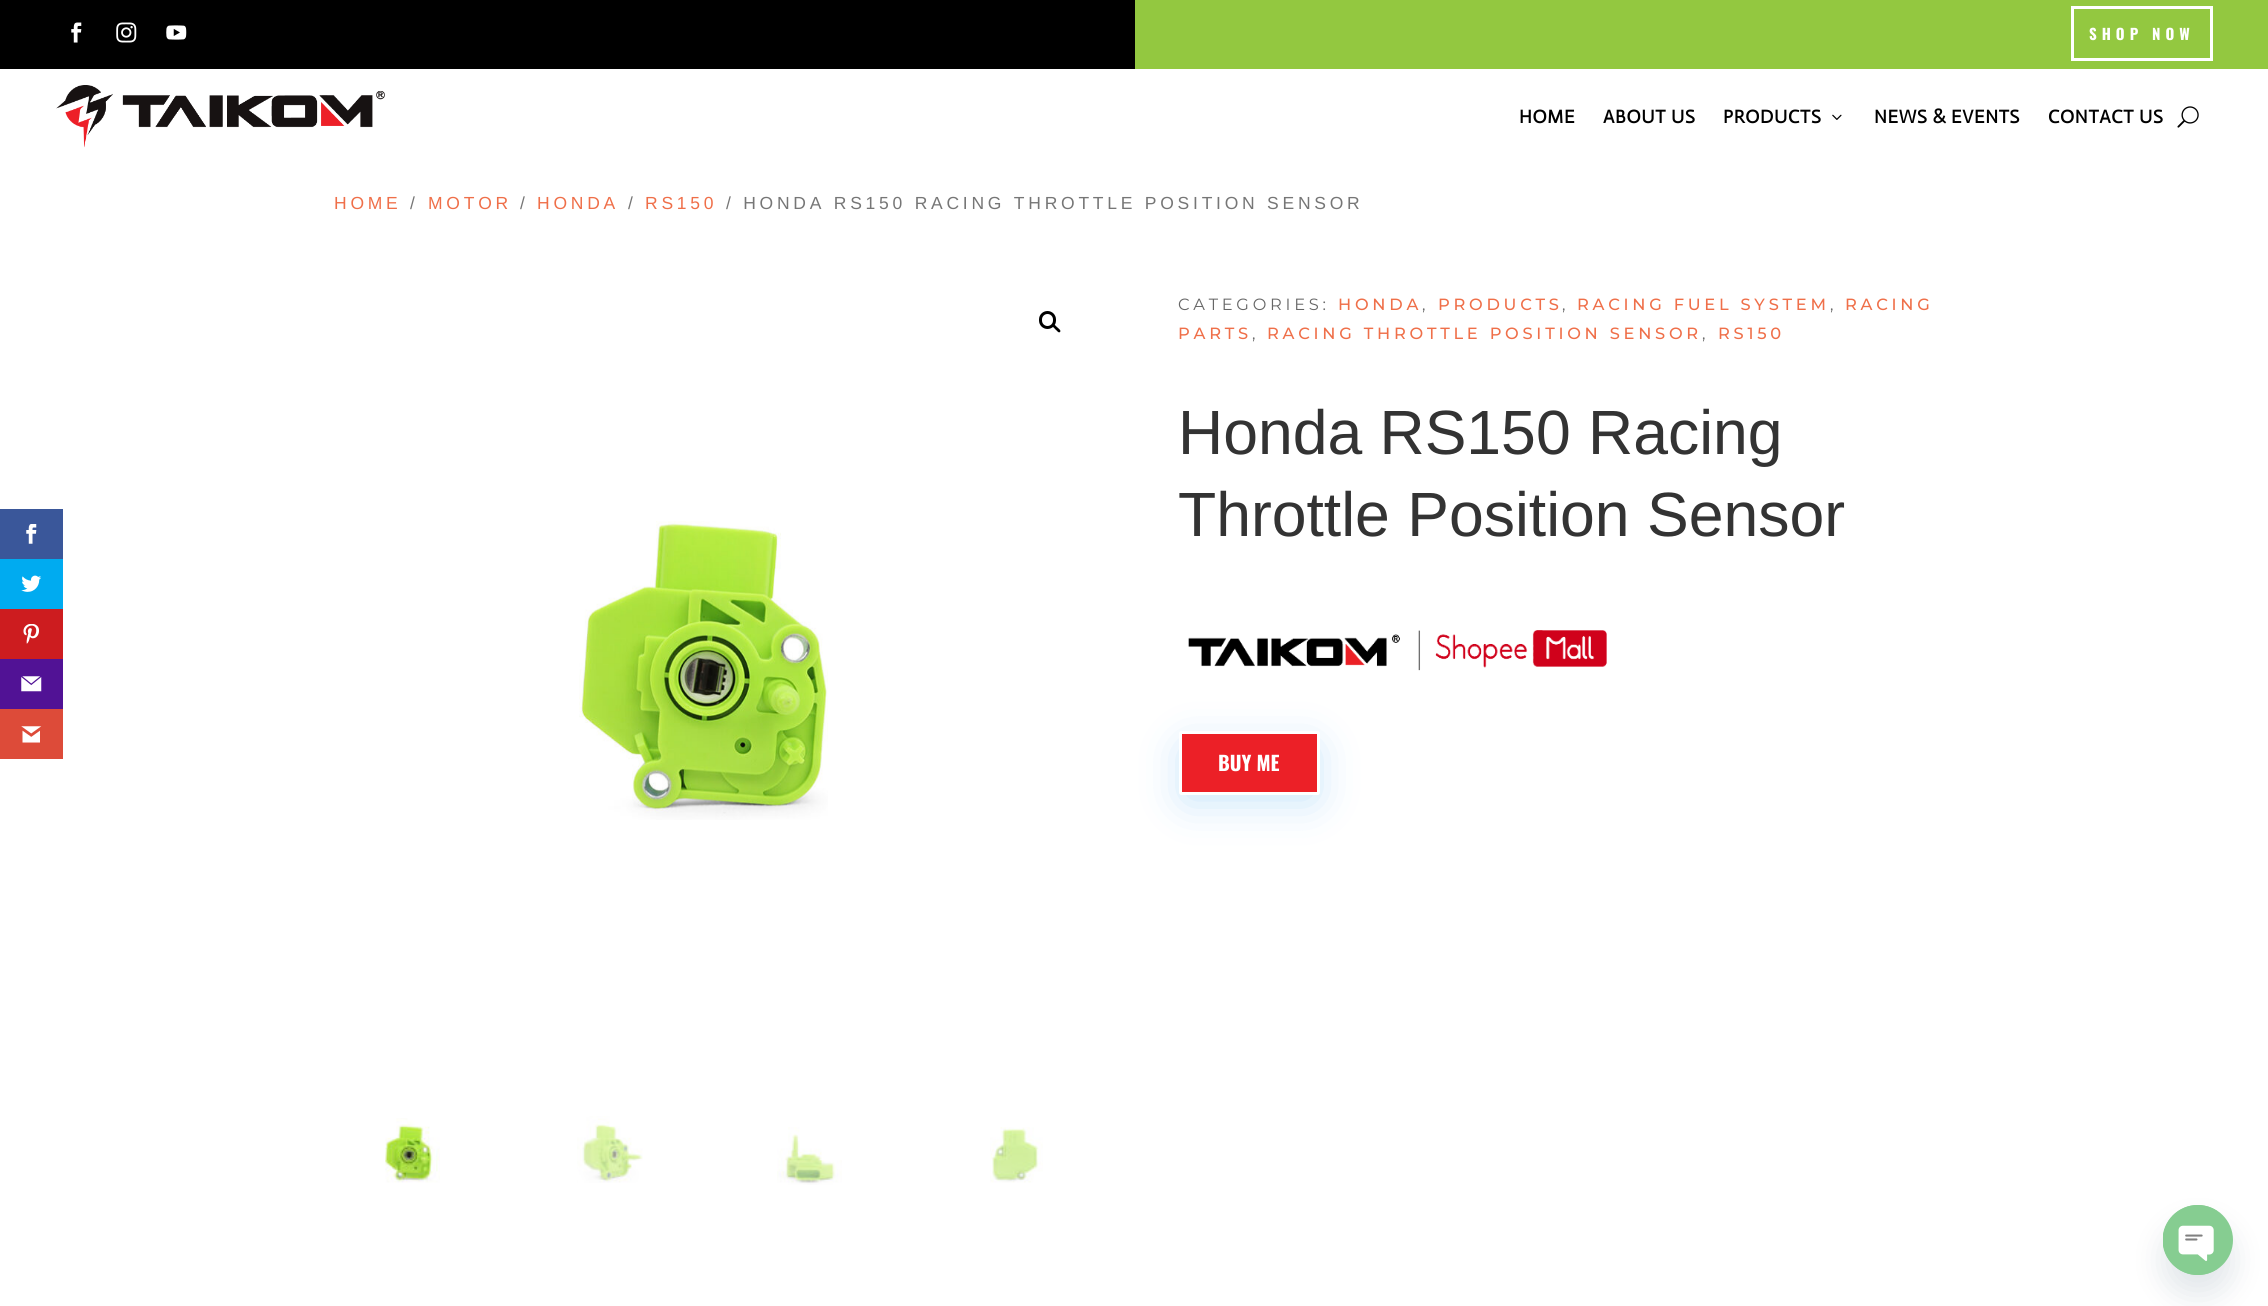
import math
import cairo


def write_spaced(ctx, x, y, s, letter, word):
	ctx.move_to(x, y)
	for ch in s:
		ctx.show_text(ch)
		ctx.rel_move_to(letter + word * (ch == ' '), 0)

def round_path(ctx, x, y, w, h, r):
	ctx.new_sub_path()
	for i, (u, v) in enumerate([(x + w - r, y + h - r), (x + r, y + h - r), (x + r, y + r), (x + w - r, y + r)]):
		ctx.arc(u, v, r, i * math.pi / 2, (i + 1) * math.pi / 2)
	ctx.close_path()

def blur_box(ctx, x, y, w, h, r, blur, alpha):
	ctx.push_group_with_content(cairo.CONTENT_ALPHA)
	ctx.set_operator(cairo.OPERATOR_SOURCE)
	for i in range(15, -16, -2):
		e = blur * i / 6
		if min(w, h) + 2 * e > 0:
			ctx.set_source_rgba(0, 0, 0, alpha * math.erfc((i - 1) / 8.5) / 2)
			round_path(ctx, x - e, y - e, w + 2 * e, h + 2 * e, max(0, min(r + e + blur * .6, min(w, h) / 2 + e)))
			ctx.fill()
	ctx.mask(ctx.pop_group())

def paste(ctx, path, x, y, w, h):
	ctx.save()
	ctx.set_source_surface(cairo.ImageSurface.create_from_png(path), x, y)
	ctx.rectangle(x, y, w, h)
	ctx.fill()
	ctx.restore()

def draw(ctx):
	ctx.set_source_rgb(1, 1, 1)
	ctx.paint()
	ctx.set_source_rgb(0.227, 0.341, 0.604)
	ctx.rectangle(0, 509, 63, 50)
	ctx.fill()
	paste(ctx, 'media/1.png', 26, 524, 11, 20)
	ctx.set_source_rgb(0, 0.671, 0.941)
	ctx.rectangle(0, 559, 63, 50)
	ctx.fill()
	paste(ctx, 'media/2.png', 21, 575, 21, 17)
	ctx.set_source_rgb(0.804, 0.11, 0.122)
	ctx.rectangle(0, 609, 63, 50)
	ctx.fill()
	paste(ctx, 'media/3.png', 23, 624, 16, 20)
	ctx.set_source_rgb(0.318, 0.071, 0.584)
	ctx.rectangle(0, 659, 63, 50)
	ctx.fill()
	paste(ctx, 'media/4.png', 21, 676, 21, 16)
	ctx.set_source_rgb(0.867, 0.294, 0.224)
	ctx.rectangle(0, 709, 63, 50)
	ctx.fill()
	paste(ctx, 'media/5.png', 21, 726, 21, 17)
	ctx.set_source_rgb(0, 0, 0)
	ctx.rectangle(0, 0, 1135, 69)
	ctx.fill()
	ctx.set_source_rgb(0.576, 0.784, 0.251)
	ctx.rectangle(1135, 0, 1133, 69)
	ctx.fill()
	paste(ctx, 'media/6.png', 71, 22, 11, 21)
	paste(ctx, 'media/7.png', 116, 22, 21, 21)
	paste(ctx, 'media/8.png', 166, 25, 21, 15)
	ctx.rectangle(2072.5, 7.5, 139, 52)
	ctx.set_source_rgb(1, 1, 1)
	ctx.set_line_width(3)
	ctx.stroke()
	ctx.select_font_face('Oswald', cairo.FONT_SLANT_NORMAL, cairo.FONT_WEIGHT_BOLD)
	ctx.set_font_size(15)
	write_spaced(ctx, 2089, 40, 'SHOP NOW', 5, 0)
	paste(ctx, 'media/9.png', 56, 85, 329, 63)
	ctx.select_font_face('Actor', cairo.FONT_SLANT_NORMAL, cairo.FONT_WEIGHT_BOLD)
	ctx.set_font_size(18.75)
	ctx.set_source_rgb(0, 0, 0)
	for x, y, s in [
		(1519, 123, 'HOME'),
		(1603, 123, 'ABOUT US'),
		(1723, 123, 'PRODUCTS'),
	]:
		write_spaced(ctx, x, y, s, 0.6, 0)
	paste(ctx, 'media/10.png', 1832, 114, 10, 6)
	write_spaced(ctx, 1874, 123, 'NEWS & EVENTS', 0.6, 0)
	write_spaced(ctx, 2048, 123, 'CONTACT US', 0.6, 0)
	paste(ctx, 'media/11.png', 2177, 106, 22, 22)
	ctx.select_font_face('Liberation Sans')
	ctx.set_font_size(17.5)
	ctx.set_source_rgb(0.937, 0.435, 0.286)
	write_spaced(ctx, 334, 209, 'HOME', 3.75, 0)
	ctx.set_source_rgb(0.463, 0.463, 0.463)
	write_spaced(ctx, 410, 209, '/', 3.75, 0)
	ctx.set_source_rgb(0.937, 0.435, 0.286)
	write_spaced(ctx, 428, 209, 'MOTOR', 3.75, 0)
	ctx.set_source_rgb(0.463, 0.463, 0.463)
	write_spaced(ctx, 520, 209, '/', 3.75, 0)
	ctx.set_source_rgb(0.937, 0.435, 0.286)
	write_spaced(ctx, 537, 209, 'HONDA', 3.75, 0)
	ctx.set_source_rgb(0.463, 0.463, 0.463)
	write_spaced(ctx, 628, 209, '/', 3.75, 0)
	ctx.set_source_rgb(0.937, 0.435, 0.286)
	write_spaced(ctx, 645, 209, 'RS150', 3.75, 0)
	ctx.set_source_rgb(0.463, 0.463, 0.463)
	write_spaced(ctx, 726, 209, '/ HONDA RS150 RACING THROTTLE POSITION SENSOR', 3.75, 0)
	round_path(ctx, 1040.5, 312.5, 14, 15, 7)
	ctx.set_source_rgb(0, 0, 0)
	ctx.stroke()
	ctx.new_path()
	ctx.move_to(1053, 325)
	ctx.curve_to(1054.5, 323.5, 1056.5, 327, 1057.5, 327.5)
	ctx.curve_to(1058.5, 328.5, 1061.5, 330.5, 1060, 332)
	ctx.curve_to(1058.5, 333.5, 1056.5, 330, 1055.5, 329.5)
	ctx.curve_to(1055, 328.5, 1051.5, 326.5, 1053, 325)
	ctx.close_path()
	ctx.fill()
	paste(ctx, 'media/12.png', 579, 521, 249, 299)
	paste(ctx, 'media/13.png', 385, 1118, 55, 65)
	paste(ctx, 'media/14.png', 577, 1116, 66, 67)
	paste(ctx, 'media/15.png', 777, 1127, 65, 58)
	paste(ctx, 'media/16.png', 990, 1127, 53, 56)
	ctx.select_font_face('Montserrat')
	ctx.set_font_size(16.25)
	ctx.set_source_rgb(0.4, 0.4, 0.4)
	write_spaced(ctx, 1178, 310, 'CATEGORIES:', 3.75, 0)
	ctx.select_font_face('Montserrat Medium')
	ctx.set_source_rgb(0.937, 0.435, 0.286)
	write_spaced(ctx, 1338, 310, 'HONDA', 3.75, 0)
	ctx.select_font_face('Montserrat')
	ctx.set_source_rgb(0.4, 0.4, 0.4)
	write_spaced(ctx, 1422, 310, ',', 3.75, 0)
	ctx.select_font_face('Montserrat Medium')
	ctx.set_source_rgb(0.937, 0.435, 0.286)
	write_spaced(ctx, 1438, 310, 'PRODUCTS', 3.75, 0)
	ctx.select_font_face('Montserrat')
	ctx.set_source_rgb(0.4, 0.4, 0.4)
	write_spaced(ctx, 1562, 310, ',', 3.75, 0)
	ctx.select_font_face('Montserrat Medium')
	ctx.set_source_rgb(0.937, 0.435, 0.286)
	write_spaced(ctx, 1577, 310, 'RACING FUEL SYSTEM', 3.75, 0)
	ctx.select_font_face('Montserrat')
	ctx.set_source_rgb(0.4, 0.4, 0.4)
	write_spaced(ctx, 1830, 310, ',', 3.75, 0)
	ctx.select_font_face('Montserrat Medium')
	ctx.set_source_rgb(0.937, 0.435, 0.286)
	write_spaced(ctx, 1845, 310, 'RACING', 3.75, 0)
	write_spaced(ctx, 1178, 339, 'PARTS', 3.75, 0)
	ctx.select_font_face('Montserrat')
	ctx.set_source_rgb(0.4, 0.4, 0.4)
	write_spaced(ctx, 1252, 339, ',', 3.75, 0)
	ctx.select_font_face('Montserrat Medium')
	ctx.set_source_rgb(0.937, 0.435, 0.286)
	write_spaced(ctx, 1267, 339, 'RACING THROTTLE POSITION SENSOR', 3.75, 0)
	ctx.select_font_face('Montserrat')
	ctx.set_source_rgb(0.4, 0.4, 0.4)
	write_spaced(ctx, 1702, 339, ',', 3.75, 0)
	ctx.select_font_face('Montserrat Medium')
	ctx.set_source_rgb(0.937, 0.435, 0.286)
	write_spaced(ctx, 1718, 339, 'RS150', 3.75, 0)
	ctx.select_font_face('Liberation Sans')
	ctx.set_font_size(62.5)
	ctx.set_source_rgb(0.2, 0.2, 0.2)
	ctx.move_to(1178, 454)
	ctx.show_text('Honda RS150 Racing')
	ctx.move_to(1178, 536)
	ctx.show_text('Throttle Position Sensor')
	paste(ctx, 'media/17.png', 1188, 630, 419, 41)
	ctx.set_source_rgb(0.302, 0.667, 0.949)
	blur_box(ctx, 1186, 749, 127, 49, 0, 22, 0.36)
	ctx.set_source_rgb(0.925, 0.125, 0.153)
	round_path(ctx, 1180.5, 732.5, 138, 61, 1)
	ctx.fill_preserve()
	ctx.set_source_rgb(1, 1, 1)
	ctx.stroke()
	ctx.select_font_face('Oswald', cairo.FONT_SLANT_NORMAL, cairo.FONT_WEIGHT_BOLD)
	ctx.set_font_size(20)
	ctx.move_to(1218, 771)
	ctx.show_text('BUY ME')
	ctx.set_source_rgb(0.286, 0.408, 0.494)
	blur_box(ctx, 2163, 1225, 70, 70, 35, 15, 0.16)
	ctx.set_source_rgb(0.525, 0.804, 0.569)
	ctx.arc(2198, 1240, 35, 0, 2 * math.pi)
	ctx.fill()
	paste(ctx, 'media/18.png', 2163, 1205, 54, 70)


surface = cairo.ImageSurface(cairo.FORMAT_RGB24, 2268, 1306)
ctx = cairo.Context(surface)
options = cairo.FontOptions()
options.set_hint_metrics(cairo.HINT_METRICS_OFF)
options.set_hint_style(cairo.HINT_STYLE_NONE)
ctx.set_font_options(options)
ctx.set_miter_limit(4)
draw(ctx)
surface.write_to_png('image.png')
